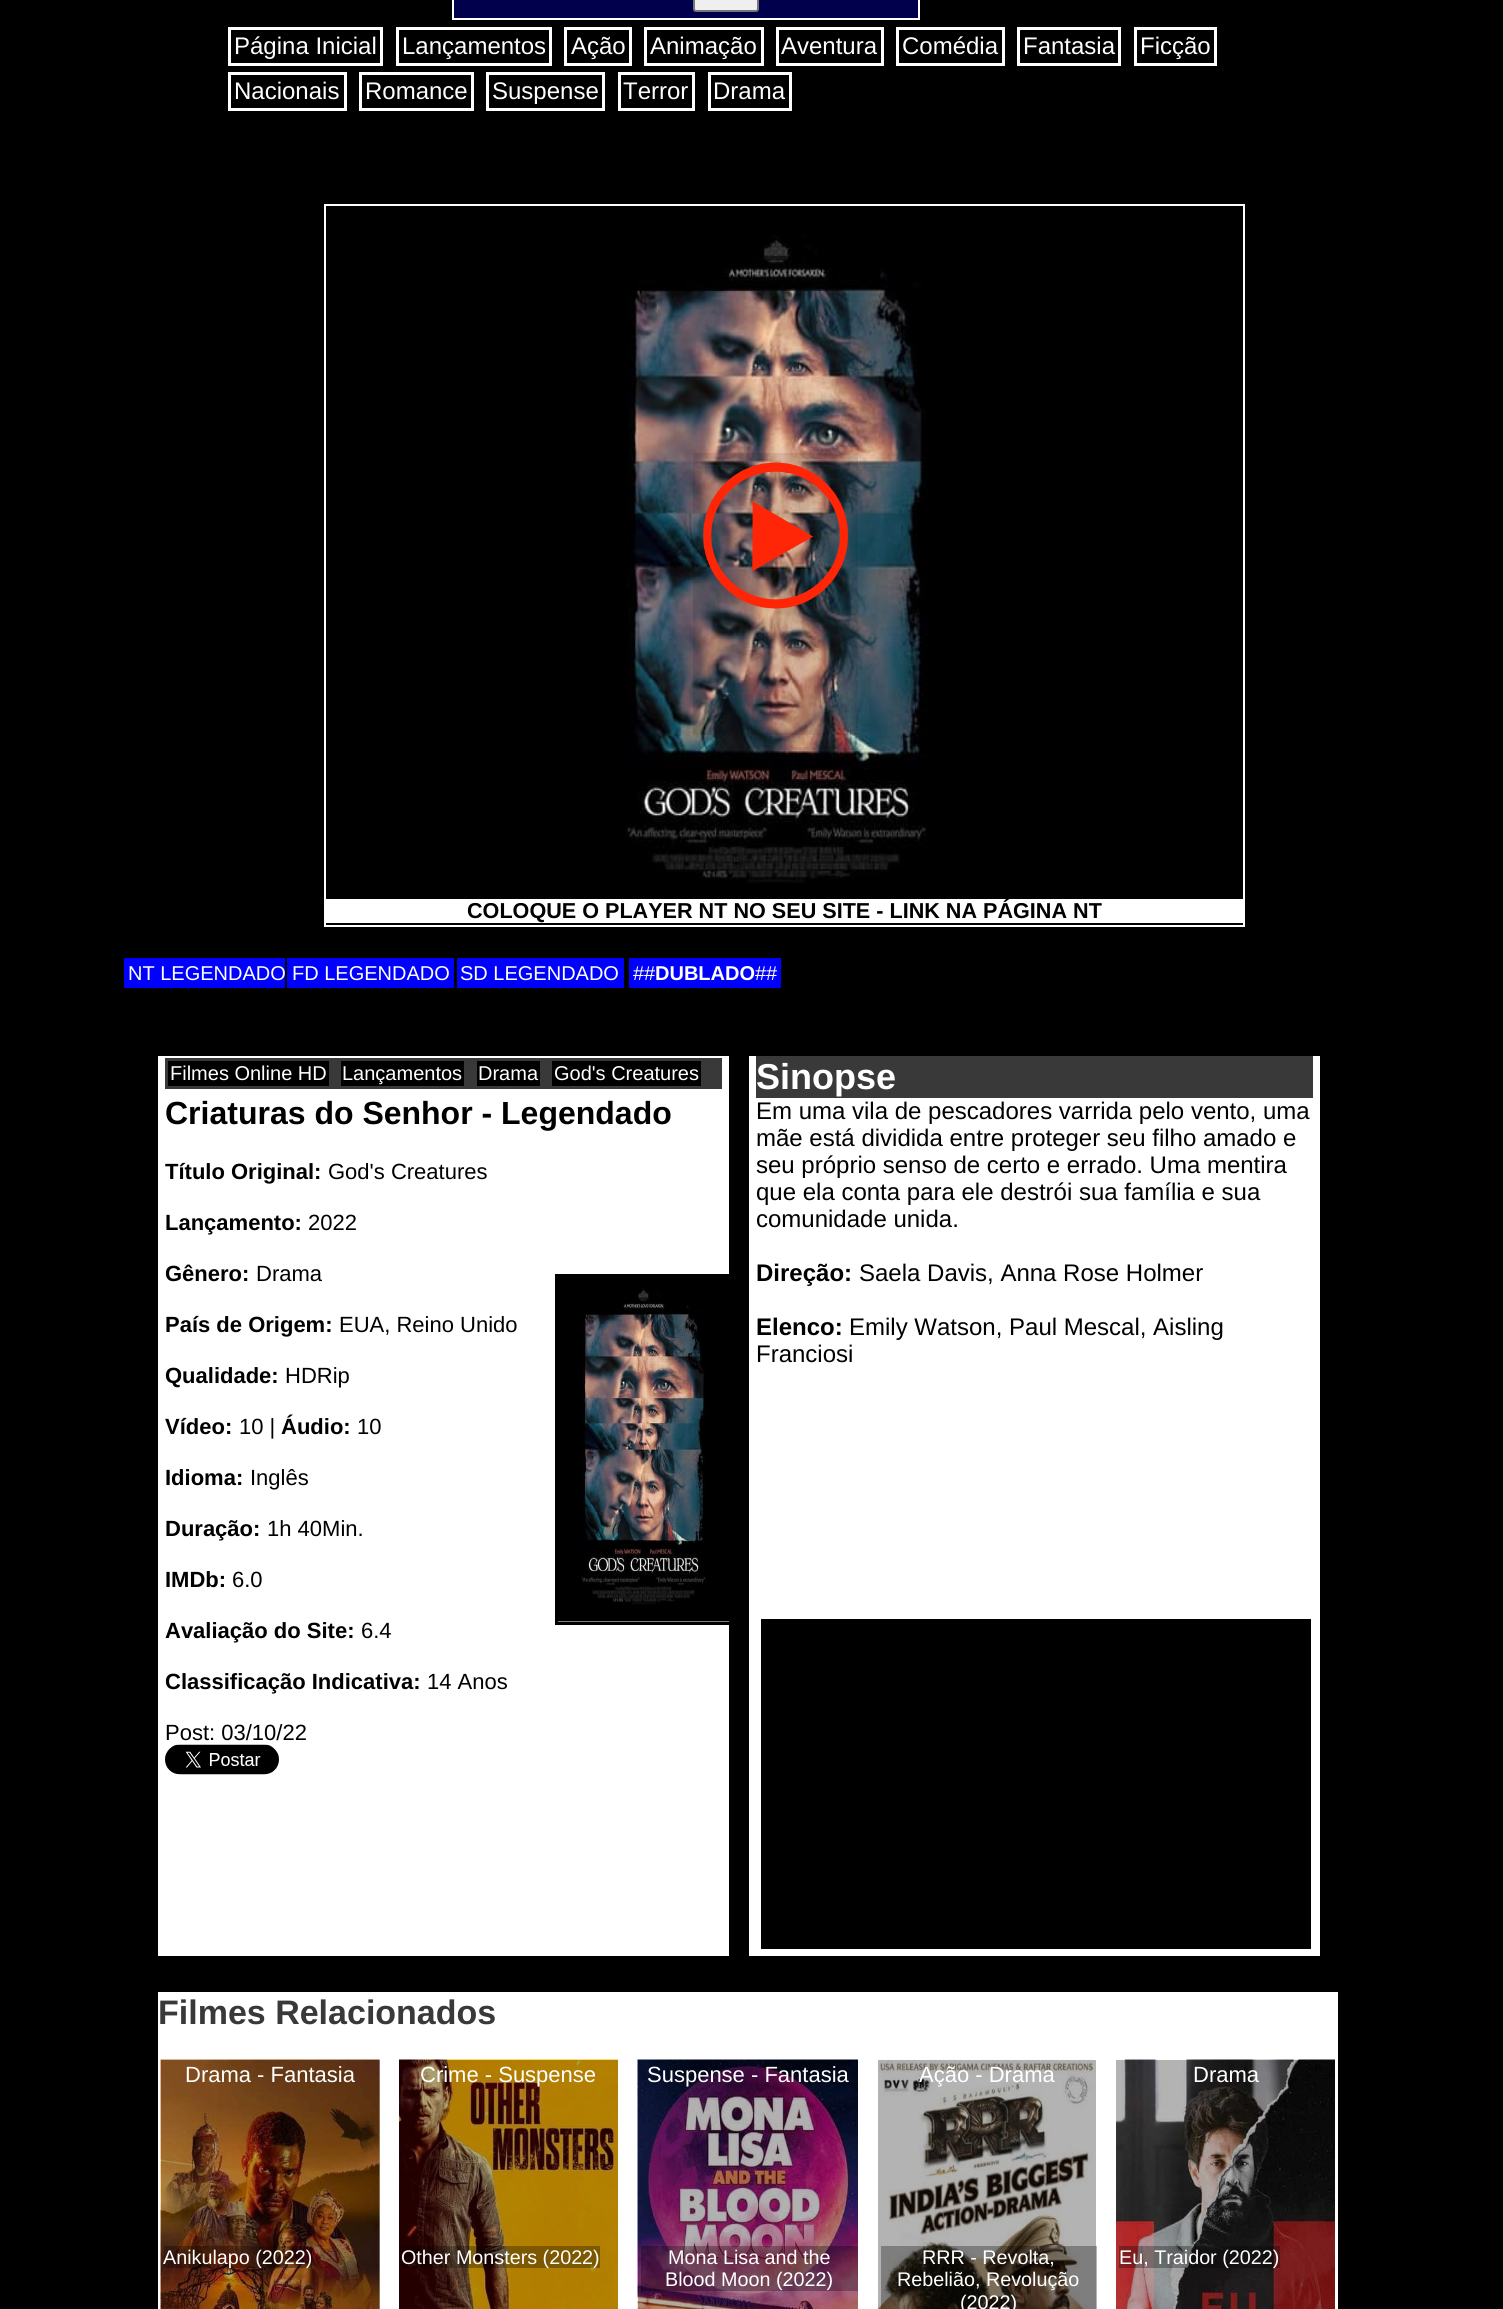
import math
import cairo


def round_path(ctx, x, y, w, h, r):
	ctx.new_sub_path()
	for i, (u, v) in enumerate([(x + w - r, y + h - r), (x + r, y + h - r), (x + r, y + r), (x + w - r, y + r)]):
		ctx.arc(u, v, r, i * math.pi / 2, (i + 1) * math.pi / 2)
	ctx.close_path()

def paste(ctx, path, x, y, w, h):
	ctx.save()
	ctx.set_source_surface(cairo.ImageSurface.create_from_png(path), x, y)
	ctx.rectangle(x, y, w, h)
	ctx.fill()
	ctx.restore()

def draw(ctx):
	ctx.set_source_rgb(0, 0, 0)
	ctx.paint()
	ctx.set_source_rgb(0, 0, 0.302)
	ctx.rectangle(453, -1, 466, 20)
	ctx.fill_preserve()
	ctx.set_source_rgb(1, 1, 1)
	ctx.stroke()
	ctx.set_source_rgb(0.937, 0.937, 0.937)
	round_path(ctx, 694, -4, 64, 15, 2)
	ctx.fill_preserve()
	ctx.set_source_rgb(0.463, 0.463, 0.463)
	ctx.stroke()
	ctx.rectangle(229.5, 28.5, 152, 36)
	ctx.set_source_rgb(1, 1, 1)
	ctx.set_line_width(3)
	ctx.stroke()
	ctx.select_font_face('Liberation Sans')
	ctx.set_font_size(24)
	ctx.move_to(234, 54)
	ctx.show_text('Página Inicial')
	ctx.rectangle(397.5, 28.5, 153, 36)
	ctx.stroke()
	ctx.move_to(402, 54)
	ctx.show_text('Lançamentos')
	ctx.rectangle(565.5, 28.5, 65, 36)
	ctx.stroke()
	ctx.move_to(571, 54)
	ctx.show_text('Ação')
	ctx.rectangle(645.5, 28.5, 117, 36)
	ctx.stroke()
	ctx.move_to(650, 54)
	ctx.show_text('Animação')
	ctx.rectangle(777.5, 28.5, 105, 36)
	ctx.stroke()
	ctx.move_to(781, 54)
	ctx.show_text('Aventura')
	ctx.rectangle(897.5, 28.5, 106, 36)
	ctx.stroke()
	ctx.move_to(902, 54)
	ctx.show_text('Comédia')
	ctx.rectangle(1018.5, 28.5, 101, 36)
	ctx.stroke()
	ctx.move_to(1023, 54)
	ctx.show_text('Fantasia')
	ctx.rectangle(1135.5, 28.5, 80, 36)
	ctx.stroke()
	ctx.move_to(1140, 54)
	ctx.show_text('Ficção')
	ctx.rectangle(229.5, 73.5, 116, 36)
	ctx.stroke()
	ctx.move_to(234, 99)
	ctx.show_text('Nacionais')
	ctx.rectangle(360.5, 73.5, 112, 36)
	ctx.stroke()
	ctx.move_to(365, 99)
	ctx.show_text('Romance')
	ctx.rectangle(487.5, 73.5, 116, 36)
	ctx.stroke()
	ctx.move_to(492, 99)
	ctx.show_text('Suspense')
	ctx.rectangle(619.5, 73.5, 74, 36)
	ctx.stroke()
	ctx.move_to(623, 99)
	ctx.show_text('Terror')
	ctx.rectangle(709.5, 73.5, 81, 36)
	ctx.stroke()
	ctx.move_to(713, 99)
	ctx.show_text('Drama')
	ctx.rectangle(325, 205, 919, 721)
	ctx.set_line_width(2)
	ctx.stroke()
	paste(ctx, 'media/1.png', 626, 235, 301, 648)
	ctx.set_source_rgba(0.008, 0, 0, 0.1)
	ctx.rectangle(693, 453, 165, 282)
	ctx.fill()
	paste(ctx, 'media/2.png', 703, 462, 145, 147)
	ctx.set_source_rgb(1, 1, 1)
	ctx.rectangle(326, 899, 917, 24)
	ctx.fill()
	ctx.select_font_face('Liberation Sans', cairo.FONT_SLANT_NORMAL, cairo.FONT_WEIGHT_BOLD)
	ctx.set_font_size(21.6)
	ctx.set_source_rgb(0, 0, 0)
	ctx.move_to(467, 918)
	ctx.show_text('COLOQUE O PLAYER NT NO SEU SITE - LINK NA PÁGINA NT')
	ctx.set_source_rgb(0, 0, 1)
	ctx.rectangle(124, 958, 161, 30)
	ctx.fill()
	ctx.select_font_face('Liberation Sans')
	ctx.set_font_size(20)
	ctx.set_source_rgb(1, 1, 1)
	ctx.move_to(128, 980)
	ctx.show_text('NT LEGENDADO')
	ctx.set_source_rgb(0, 0, 1)
	ctx.rectangle(287, 958, 167, 30)
	ctx.fill()
	ctx.set_source_rgb(1, 1, 1)
	ctx.move_to(292, 980)
	ctx.show_text('FD LEGENDADO')
	ctx.set_source_rgb(0, 0, 1)
	ctx.rectangle(457, 958, 167, 30)
	ctx.fill()
	ctx.set_source_rgb(1, 1, 1)
	ctx.move_to(460, 980)
	ctx.show_text('SD LEGENDADO')
	ctx.set_source_rgb(0, 0, 1)
	ctx.rectangle(629, 958, 152, 30)
	ctx.fill()
	ctx.set_source_rgb(1, 1, 1)
	ctx.move_to(633, 980)
	ctx.show_text('##')
	ctx.select_font_face('Liberation Sans', cairo.FONT_SLANT_NORMAL, cairo.FONT_WEIGHT_BOLD)
	ctx.move_to(655, 980)
	ctx.show_text('DUBLADO')
	ctx.select_font_face('Liberation Sans')
	ctx.move_to(755, 980)
	ctx.show_text('##')
	ctx.rectangle(158, 1056, 571, 900)
	ctx.fill()
	ctx.set_source_rgb(0.224, 0.224, 0.224)
	ctx.rectangle(165, 1058, 557, 31)
	ctx.fill()
	ctx.set_source_rgb(0, 0, 0)
	ctx.rectangle(168, 1061, 161, 25)
	ctx.fill()
	ctx.set_source_rgb(1, 1, 1)
	ctx.move_to(170, 1080)
	ctx.show_text('Filmes Online HD')
	ctx.set_source_rgb(0, 0, 0)
	ctx.rectangle(341, 1061, 123, 25)
	ctx.fill()
	ctx.set_source_rgb(1, 1, 1)
	ctx.move_to(342, 1080)
	ctx.show_text('Lançamentos')
	ctx.set_source_rgb(0, 0, 0)
	ctx.rectangle(477, 1061, 63, 25)
	ctx.fill()
	ctx.set_source_rgb(1, 1, 1)
	ctx.move_to(478, 1080)
	ctx.show_text('Drama')
	ctx.set_source_rgb(0, 0, 0)
	ctx.rectangle(552, 1061, 149, 25)
	ctx.fill()
	ctx.set_source_rgb(1, 1, 1)
	ctx.move_to(554, 1080)
	ctx.show_text('God\'s Creatures')
	ctx.select_font_face('Liberation Sans', cairo.FONT_SLANT_NORMAL, cairo.FONT_WEIGHT_BOLD)
	ctx.set_font_size(32)
	ctx.set_source_rgb(0, 0, 0)
	ctx.move_to(165, 1124)
	ctx.show_text('Criaturas do Senhor - Legendado')
	ctx.set_font_size(22)
	ctx.move_to(165, 1179)
	ctx.show_text('Título Original:')
	ctx.select_font_face('Liberation Sans')
	ctx.move_to(328, 1179)
	ctx.show_text('God\'s Creatures')
	ctx.select_font_face('Liberation Sans', cairo.FONT_SLANT_NORMAL, cairo.FONT_WEIGHT_BOLD)
	ctx.move_to(165, 1230)
	ctx.show_text('Lançamento:')
	ctx.select_font_face('Liberation Sans')
	ctx.move_to(308, 1230)
	ctx.show_text('2022')
	ctx.select_font_face('Liberation Sans', cairo.FONT_SLANT_NORMAL, cairo.FONT_WEIGHT_BOLD)
	ctx.move_to(165, 1281)
	ctx.show_text('Gênero:')
	ctx.select_font_face('Liberation Sans')
	ctx.move_to(256, 1281)
	ctx.show_text('Drama')
	ctx.rectangle(556.5, 1275.5, 174, 348)
	ctx.set_line_width(3)
	ctx.stroke()
	paste(ctx, 'media/3.png', 558, 1277, 171, 345)
	ctx.select_font_face('Liberation Sans', cairo.FONT_SLANT_NORMAL, cairo.FONT_WEIGHT_BOLD)
	ctx.move_to(165, 1332)
	ctx.show_text('País de Origem:')
	ctx.select_font_face('Liberation Sans')
	ctx.move_to(339, 1332)
	ctx.show_text('EUA, Reino Unido')
	ctx.select_font_face('Liberation Sans', cairo.FONT_SLANT_NORMAL, cairo.FONT_WEIGHT_BOLD)
	ctx.move_to(165, 1383)
	ctx.show_text('Qualidade:')
	ctx.select_font_face('Liberation Sans')
	ctx.move_to(285, 1383)
	ctx.show_text('HDRip')
	ctx.select_font_face('Liberation Sans', cairo.FONT_SLANT_NORMAL, cairo.FONT_WEIGHT_BOLD)
	ctx.move_to(165, 1434)
	ctx.show_text('Vídeo:')
	ctx.select_font_face('Liberation Sans')
	ctx.move_to(239, 1434)
	ctx.show_text('10 |')
	ctx.select_font_face('Liberation Sans', cairo.FONT_SLANT_NORMAL, cairo.FONT_WEIGHT_BOLD)
	ctx.move_to(281, 1434)
	ctx.show_text('Áudio:')
	ctx.select_font_face('Liberation Sans')
	ctx.move_to(357, 1434)
	ctx.show_text('10')
	ctx.select_font_face('Liberation Sans', cairo.FONT_SLANT_NORMAL, cairo.FONT_WEIGHT_BOLD)
	ctx.move_to(165, 1485)
	ctx.show_text('Idioma:')
	ctx.select_font_face('Liberation Sans')
	ctx.move_to(250, 1485)
	ctx.show_text('Inglês')
	ctx.select_font_face('Liberation Sans', cairo.FONT_SLANT_NORMAL, cairo.FONT_WEIGHT_BOLD)
	ctx.move_to(165, 1536)
	ctx.show_text('Duração:')
	ctx.select_font_face('Liberation Sans')
	ctx.move_to(267, 1536)
	ctx.show_text('1h 40Min.')
	ctx.select_font_face('Liberation Sans', cairo.FONT_SLANT_NORMAL, cairo.FONT_WEIGHT_BOLD)
	ctx.move_to(165, 1587)
	ctx.show_text('IMDb:')
	ctx.select_font_face('Liberation Sans')
	ctx.move_to(232, 1587)
	ctx.show_text('6.0')
	ctx.select_font_face('Liberation Sans', cairo.FONT_SLANT_NORMAL, cairo.FONT_WEIGHT_BOLD)
	ctx.move_to(165, 1638)
	ctx.show_text('Avaliação do Site:')
	ctx.select_font_face('Liberation Sans')
	ctx.move_to(361, 1638)
	ctx.show_text('6.4')
	ctx.select_font_face('Liberation Sans', cairo.FONT_SLANT_NORMAL, cairo.FONT_WEIGHT_BOLD)
	ctx.move_to(165, 1689)
	ctx.show_text('Classificação Indicativa:')
	ctx.select_font_face('Liberation Sans')
	ctx.move_to(427, 1689)
	ctx.show_text('14 Anos')
	ctx.move_to(165, 1740)
	ctx.show_text('Post: 03/10/22')
	paste(ctx, 'media/4.png', 165, 1744, 114, 31)
	ctx.set_source_rgb(1, 1, 1)
	ctx.rectangle(749, 1056, 571, 900)
	ctx.fill()
	ctx.set_source_rgb(0.224, 0.224, 0.224)
	ctx.rectangle(756, 1056, 557, 42)
	ctx.fill()
	ctx.select_font_face('Liberation Sans', cairo.FONT_SLANT_NORMAL, cairo.FONT_WEIGHT_BOLD)
	ctx.set_font_size(36)
	ctx.set_source_rgb(1, 1, 1)
	ctx.move_to(756, 1089)
	ctx.show_text('Sinopse')
	ctx.select_font_face('Liberation Sans')
	ctx.set_font_size(24)
	ctx.set_source_rgb(0, 0, 0)
	for x, y, s in [
		(756, 1119, 'Em uma vila de pescadores varrida pelo vento, uma'),
		(756, 1146, 'mãe está dividida entre proteger seu filho amado e'),
		(756, 1173, 'seu próprio senso de certo e errado. Uma mentira'),
		(756, 1200, 'que ela conta para ele destrói sua família e sua'),
		(756, 1227, 'comunidade unida.'),
	]:
		ctx.move_to(x, y)
		ctx.show_text(s)
	ctx.select_font_face('Liberation Sans', cairo.FONT_SLANT_NORMAL, cairo.FONT_WEIGHT_BOLD)
	ctx.move_to(756, 1281)
	ctx.show_text('Direção:')
	ctx.select_font_face('Liberation Sans')
	ctx.move_to(859, 1281)
	ctx.show_text('Saela Davis, Anna Rose Holmer')
	ctx.select_font_face('Liberation Sans', cairo.FONT_SLANT_NORMAL, cairo.FONT_WEIGHT_BOLD)
	ctx.move_to(756, 1335)
	ctx.show_text('Elenco:')
	ctx.select_font_face('Liberation Sans')
	ctx.move_to(849, 1335)
	ctx.show_text('Emily Watson, Paul Mescal, Aisling')
	ctx.move_to(756, 1362)
	ctx.show_text('Franciosi')
	ctx.rectangle(761, 1619, 550, 330)
	ctx.fill()
	ctx.set_source_rgb(1, 1, 1)
	ctx.rectangle(158, 1992, 1180, 317)
	ctx.fill()
	ctx.set_source_rgb(0.702, 0.702, 0.702)
	ctx.rectangle(379, 2060, 1, 249)
	ctx.fill()
	ctx.select_font_face('Liberation Sans', cairo.FONT_SLANT_NORMAL, cairo.FONT_WEIGHT_BOLD)
	ctx.set_font_size(34)
	ctx.set_source_rgb(0.224, 0.224, 0.224)
	ctx.move_to(158, 2024)
	ctx.show_text('Filmes Relacionados')
	paste(ctx, 'media/5.png', 160, 2059, 220, 250)
	ctx.select_font_face('Liberation Sans')
	ctx.set_font_size(22)
	ctx.set_source_rgb(1, 1, 1)
	ctx.move_to(185, 2082)
	ctx.show_text('Drama - Fantasia')
	ctx.set_source_rgba(0.008, 0, 0, 0.3)
	ctx.rectangle(164, 2246, 148, 22)
	ctx.fill()
	ctx.set_font_size(19.75)
	ctx.set_source_rgb(1, 1, 1)
	ctx.move_to(163, 2264)
	ctx.show_text('Anikulapo (2022)')
	paste(ctx, 'media/6.png', 399, 2059, 219, 250)
	ctx.set_font_size(22)
	ctx.move_to(420, 2082)
	ctx.show_text('Crime - Suspense')
	ctx.set_source_rgba(0.008, 0, 0, 0.3)
	ctx.rectangle(402, 2246, 198, 22)
	ctx.fill()
	ctx.set_font_size(19.75)
	ctx.set_source_rgb(1, 1, 1)
	ctx.move_to(401, 2264)
	ctx.show_text('Other Monsters (2022)')
	paste(ctx, 'media/7.png', 637, 2059, 221, 250)
	ctx.set_font_size(22)
	ctx.move_to(647, 2082)
	ctx.show_text('Suspense - Fantasia')
	ctx.set_source_rgba(0.008, 0, 0, 0.3)
	ctx.rectangle(641, 2246, 217, 45)
	ctx.fill()
	ctx.set_font_size(19.75)
	ctx.set_source_rgb(1, 1, 1)
	ctx.move_to(668, 2264)
	ctx.show_text('Mona Lisa and the')
	ctx.move_to(665, 2286)
	ctx.show_text('Blood Moon (2022)')
	paste(ctx, 'media/8.png', 877, 2059, 219, 250)
	ctx.set_font_size(22)
	ctx.move_to(919, 2082)
	ctx.show_text('Ação - Drama')
	ctx.set_source_rgba(0.008, 0, 0, 0.3)
	ctx.rectangle(881, 2246, 216, 63)
	ctx.fill()
	ctx.set_font_size(19.75)
	ctx.set_source_rgb(1, 1, 1)
	for x, y, s in [
		(922, 2264, 'RRR - Revolta,'),
		(897, 2286, 'Rebelião, Revolução'),
		(960, 2309, '(2022)'),
	]:
		ctx.move_to(x, y)
		ctx.show_text(s)
	paste(ctx, 'media/9.png', 1116, 2059, 219, 250)
	ctx.set_font_size(22)
	ctx.move_to(1193, 2082)
	ctx.show_text('Drama')
	ctx.set_source_rgba(0.008, 0, 0, 0.3)
	ctx.rectangle(1119, 2246, 161, 22)
	ctx.fill()
	ctx.set_font_size(19.75)
	ctx.set_source_rgb(1, 1, 1)
	ctx.move_to(1119, 2264)
	ctx.show_text('Eu, Traidor (2022)')


surface = cairo.ImageSurface(cairo.FORMAT_RGB24, 1503, 2309)
ctx = cairo.Context(surface)
options = cairo.FontOptions()
options.set_hint_metrics(cairo.HINT_METRICS_OFF)
options.set_hint_style(cairo.HINT_STYLE_NONE)
ctx.set_font_options(options)
ctx.set_miter_limit(4)
draw(ctx)
surface.write_to_png('image.png')
